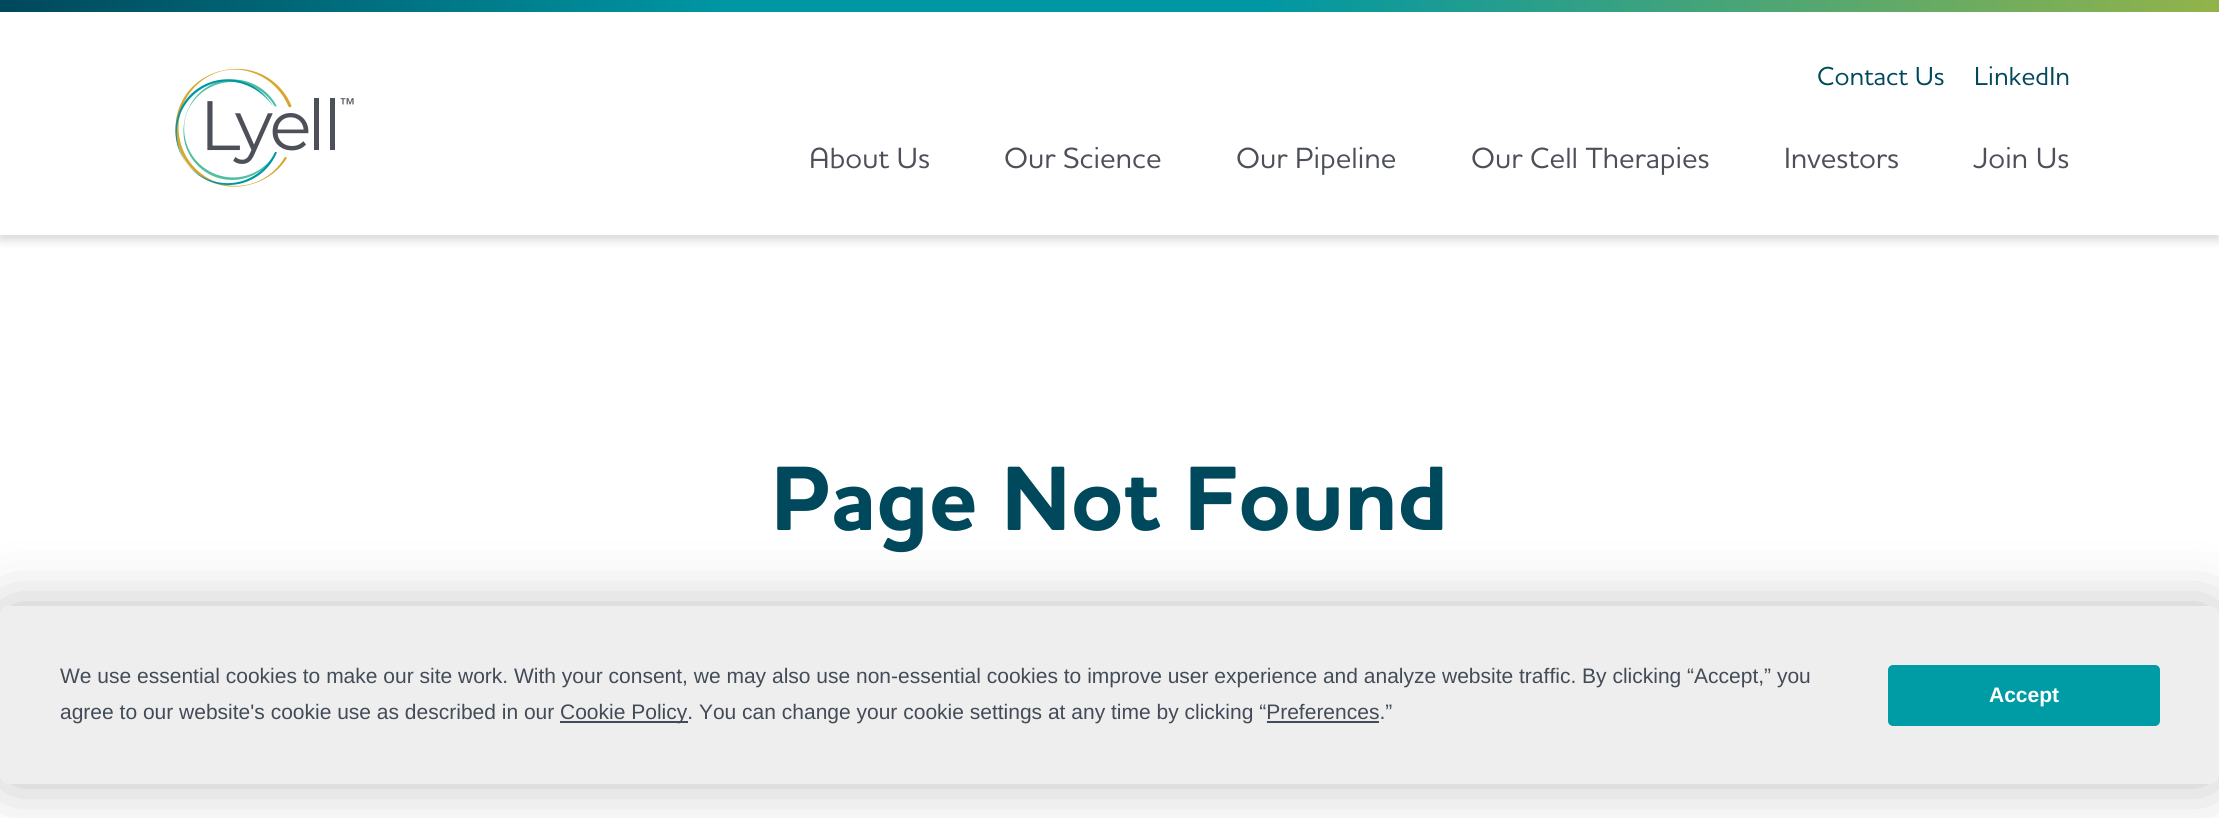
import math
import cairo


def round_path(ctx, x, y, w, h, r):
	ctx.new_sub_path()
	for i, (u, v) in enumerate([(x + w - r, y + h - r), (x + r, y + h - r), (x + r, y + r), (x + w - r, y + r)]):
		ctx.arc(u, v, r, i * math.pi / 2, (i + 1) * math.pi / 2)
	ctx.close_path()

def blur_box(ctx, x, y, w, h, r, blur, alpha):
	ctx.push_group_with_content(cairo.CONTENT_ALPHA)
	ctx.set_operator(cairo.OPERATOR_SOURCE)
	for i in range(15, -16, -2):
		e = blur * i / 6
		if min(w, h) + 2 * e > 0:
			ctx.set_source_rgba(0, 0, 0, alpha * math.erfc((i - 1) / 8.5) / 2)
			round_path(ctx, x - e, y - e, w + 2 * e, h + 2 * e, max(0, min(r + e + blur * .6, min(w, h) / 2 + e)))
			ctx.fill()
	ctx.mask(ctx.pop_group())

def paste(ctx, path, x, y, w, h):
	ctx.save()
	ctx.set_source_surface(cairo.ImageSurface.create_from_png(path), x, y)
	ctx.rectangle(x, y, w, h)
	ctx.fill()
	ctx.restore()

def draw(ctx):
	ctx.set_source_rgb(1, 1, 1)
	ctx.paint()
	ctx.set_source_rgb(0, 0, 0)
	blur_box(ctx, 0, 5, 2219, 235, 0, 5, 0.16)
	ctx.set_source_rgb(1, 1, 1)
	ctx.rectangle(0, 12, 2219, 223)
	ctx.fill()
	gradient = cairo.LinearGradient(0, 6.1, 2219, 6.1)
	gradient.add_color_stop_rgba(0, 0, 0.282, 0.357, 1)
	gradient.add_color_stop_rgba(0.33, 0, 0.592, 0.643, 1)
	gradient.add_color_stop_rgba(0.57, 0, 0.592, 0.643, 1)
	gradient.add_color_stop_rgba(1, 0.576, 0.702, 0.286, 1)
	ctx.set_source(gradient)
	ctx.rectangle(0, 0, 2219, 12)
	ctx.fill()
	ctx.select_font_face('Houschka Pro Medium')
	ctx.set_font_size(26.5)
	ctx.set_source_rgb(0, 0.282, 0.357)
	ctx.move_to(1817, 85)
	ctx.show_text('Contact Us')
	ctx.move_to(1974, 85)
	ctx.show_text('LinkedIn')
	paste(ctx, 'media/1.png', 175, 68, 179, 119)
	ctx.set_font_size(29.75)
	ctx.set_source_rgb(0.302, 0.314, 0.349)
	for x, y, s in [
		(809, 168, 'About Us'),
		(1004, 168, 'Our Science'),
		(1236, 168, 'Our Pipeline'),
		(1471, 168, 'Our Cell Therapies'),
		(1784, 168, 'Investors'),
		(1973, 168, 'Join Us'),
	]:
		ctx.move_to(x, y)
		ctx.show_text(s)
	ctx.select_font_face('Houschka Pro', cairo.FONT_SLANT_NORMAL, cairo.FONT_WEIGHT_BOLD)
	ctx.set_font_size(93)
	ctx.set_source_rgb(0, 0.282, 0.357)
	ctx.move_to(771, 530)
	ctx.show_text('Page Not Found')
	ctx.set_source_rgb(0, 0, 0)
	blur_box(ctx, 0, 606, 2219, 178, 9, 30.5, 0.25)
	ctx.set_source_rgb(0.933, 0.933, 0.933)
	round_path(ctx, 0, 606, 2219, 178, 9)
	ctx.fill()
	ctx.select_font_face('Liberation Sans')
	ctx.set_font_size(21)
	ctx.set_source_rgb(0.259, 0.294, 0.341)
	ctx.move_to(60, 683)
	ctx.show_text('We use essential cookies to make our site work. With your consent, we may also use non-essential cookies to improve user experience and analyze website traffic. By clicking “Accept,” you')
	ctx.move_to(60, 719)
	ctx.show_text('agree to our website\'s cookie use as described in our')
	ctx.rectangle(560, 721, 128, 2)
	ctx.fill()
	ctx.move_to(560, 719)
	ctx.show_text('Cookie Policy. You can change your cookie settings at any time by clicking “Preferences.”')
	ctx.rectangle(1267, 721, 112, 2)
	ctx.fill()
	ctx.set_source_rgb(0, 0.612, 0.651)
	round_path(ctx, 1889, 666, 270, 59, 4)
	ctx.fill_preserve()
	ctx.stroke()
	ctx.select_font_face('Liberation Sans', cairo.FONT_SLANT_NORMAL, cairo.FONT_WEIGHT_BOLD)
	ctx.set_source_rgb(1, 1, 1)
	ctx.move_to(1989, 702)
	ctx.show_text('Accept')


surface = cairo.ImageSurface(cairo.FORMAT_RGB24, 2219, 818)
ctx = cairo.Context(surface)
options = cairo.FontOptions()
options.set_hint_metrics(cairo.HINT_METRICS_OFF)
options.set_hint_style(cairo.HINT_STYLE_NONE)
ctx.set_font_options(options)
ctx.set_miter_limit(4)
draw(ctx)
surface.write_to_png('image.png')
